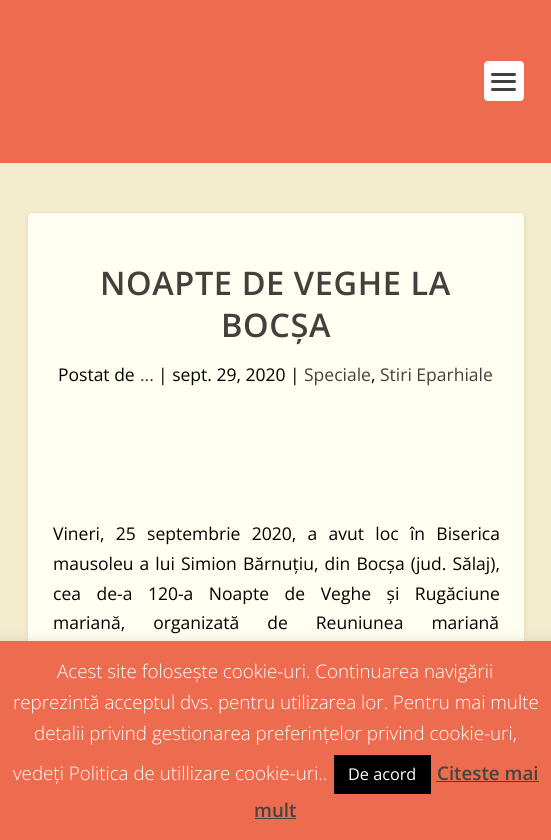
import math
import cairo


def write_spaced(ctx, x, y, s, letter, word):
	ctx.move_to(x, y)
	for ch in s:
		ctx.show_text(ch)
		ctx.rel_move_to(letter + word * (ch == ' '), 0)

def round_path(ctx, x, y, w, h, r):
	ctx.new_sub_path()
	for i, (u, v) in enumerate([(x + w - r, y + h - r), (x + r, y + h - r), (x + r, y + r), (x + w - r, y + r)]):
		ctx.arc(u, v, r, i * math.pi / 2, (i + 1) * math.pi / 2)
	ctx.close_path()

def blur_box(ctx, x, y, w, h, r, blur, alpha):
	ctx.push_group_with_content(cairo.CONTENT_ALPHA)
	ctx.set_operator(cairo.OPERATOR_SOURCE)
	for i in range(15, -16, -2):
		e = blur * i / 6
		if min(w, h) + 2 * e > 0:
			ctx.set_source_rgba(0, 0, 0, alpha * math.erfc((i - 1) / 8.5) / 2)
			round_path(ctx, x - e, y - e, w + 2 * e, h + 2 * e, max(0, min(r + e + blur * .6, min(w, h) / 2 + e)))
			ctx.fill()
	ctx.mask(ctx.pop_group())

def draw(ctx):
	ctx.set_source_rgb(0.949, 0.918, 0.804)
	ctx.paint()
	ctx.set_source_rgb(0.929, 0.42, 0.306)
	ctx.rectangle(0, 0, 551, 163)
	ctx.fill()
	ctx.set_source_rgb(1, 1, 1)
	round_path(ctx, 484, 61, 40, 40, 4)
	ctx.fill()
	ctx.set_source_rgb(0.251, 0.251, 0.251)
	round_path(ctx, 491, 73, 25, 3, 1.5)
	ctx.fill()
	round_path(ctx, 491, 80, 25, 3, 1.5)
	ctx.fill()
	round_path(ctx, 491, 88, 25, 3, 1.5)
	ctx.fill()
	ctx.set_source_rgb(0, 0, 0)
	blur_box(ctx, 28, 214, 496, 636, 4, 2, 0.1)
	ctx.set_source_rgb(1, 0.996, 0.941)
	round_path(ctx, 28, 213, 496, 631, 4)
	ctx.fill()
	ctx.select_font_face('Open Sans SemiBold')
	ctx.set_font_size(32.5)
	ctx.set_source_rgb(0.251, 0.251, 0.235)
	write_spaced(ctx, 100, 295, 'NOAPTE DE VEGHE LA', 0.6, 0)
	write_spaced(ctx, 221, 337, 'BOCȘA', 0.6, 0)
	ctx.select_font_face('Open Sans')
	ctx.set_font_size(17.5)
	ctx.set_source_rgb(0, 0, 0)
	ctx.move_to(58, 381)
	ctx.show_text('Postat de')
	ctx.set_source_rgb(0.251, 0.251, 0.235)
	ctx.move_to(140, 381)
	ctx.show_text('...')
	ctx.set_source_rgb(0, 0, 0)
	ctx.move_to(158, 381)
	ctx.show_text('| sept. 29, 2020 |')
	ctx.set_source_rgb(0.251, 0.251, 0.235)
	ctx.move_to(304, 381)
	ctx.show_text('Speciale')
	ctx.set_source_rgb(0, 0, 0)
	ctx.move_to(371, 381)
	ctx.show_text(',')
	ctx.set_source_rgb(0.251, 0.251, 0.235)
	ctx.move_to(380, 381)
	ctx.show_text('Stiri Eparhiale')
	ctx.set_source_rgb(0, 0, 0)
	write_spaced(ctx, 53, 540, 'Vineri, 25 septembrie 2020, a avut loc în Biserica', 0, 6.75)
	write_spaced(ctx, 53, 570, 'mausoleu a lui Simion Bărnuțiu, din Bocșa (jud. Sălaj),', 0, 1.5)
	write_spaced(ctx, 53, 600, 'cea de-a 120-a Noapte de Veghe și Rugăciune', 0, 11)
	write_spaced(ctx, 53, 629, 'mariană, organizată de Reuniunea mariană', 0, 23.5)
	ctx.set_source_rgb(0.675, 0.671, 0.671)
	blur_box(ctx, 0, 640, 551, 199, 0, 6, 0.3)
	ctx.set_source_rgb(0.929, 0.42, 0.306)
	ctx.rectangle(0, 641, 551, 199)
	ctx.fill()
	ctx.select_font_face('Open Sans Light')
	ctx.set_font_size(18.75)
	ctx.set_source_rgb(1, 1, 1)
	for x, y, s in [
		(57, 678, 'Acest site folosește cookie-uri. Continuarea navigării'),
		(13, 709, 'reprezintă acceptul dvs. pentru utilizarea lor. Pentru mai multe'),
		(34, 740, 'detalii privind gestionarea preferințelor privind cookie-uri,'),
		(13, 780, 'vedeți Politica de utillizare cookie-uri..'),
	]:
		ctx.move_to(x, y)
		ctx.show_text(s)
	ctx.set_source_rgb(0, 0, 0)
	ctx.rectangle(334, 755, 97, 39)
	ctx.fill()
	ctx.select_font_face('Open Sans')
	ctx.set_font_size(16.25)
	ctx.set_source_rgb(1, 1, 1)
	ctx.move_to(348, 780)
	ctx.show_text('De acord')
	ctx.select_font_face('Open Sans SemiBold')
	ctx.set_font_size(18.75)
	ctx.set_source_rgb(0.267, 0.267, 0.267)
	ctx.move_to(437, 780)
	ctx.show_text('Citeste mai')
	ctx.rectangle(436, 781, 103, 1)
	ctx.fill()
	ctx.move_to(254, 817)
	ctx.show_text('mult')
	ctx.rectangle(255, 818, 41, 1)
	ctx.fill()


surface = cairo.ImageSurface(cairo.FORMAT_RGB24, 551, 840)
ctx = cairo.Context(surface)
options = cairo.FontOptions()
options.set_hint_metrics(cairo.HINT_METRICS_OFF)
options.set_hint_style(cairo.HINT_STYLE_NONE)
ctx.set_font_options(options)
ctx.set_miter_limit(4)
draw(ctx)
surface.write_to_png('image.png')
